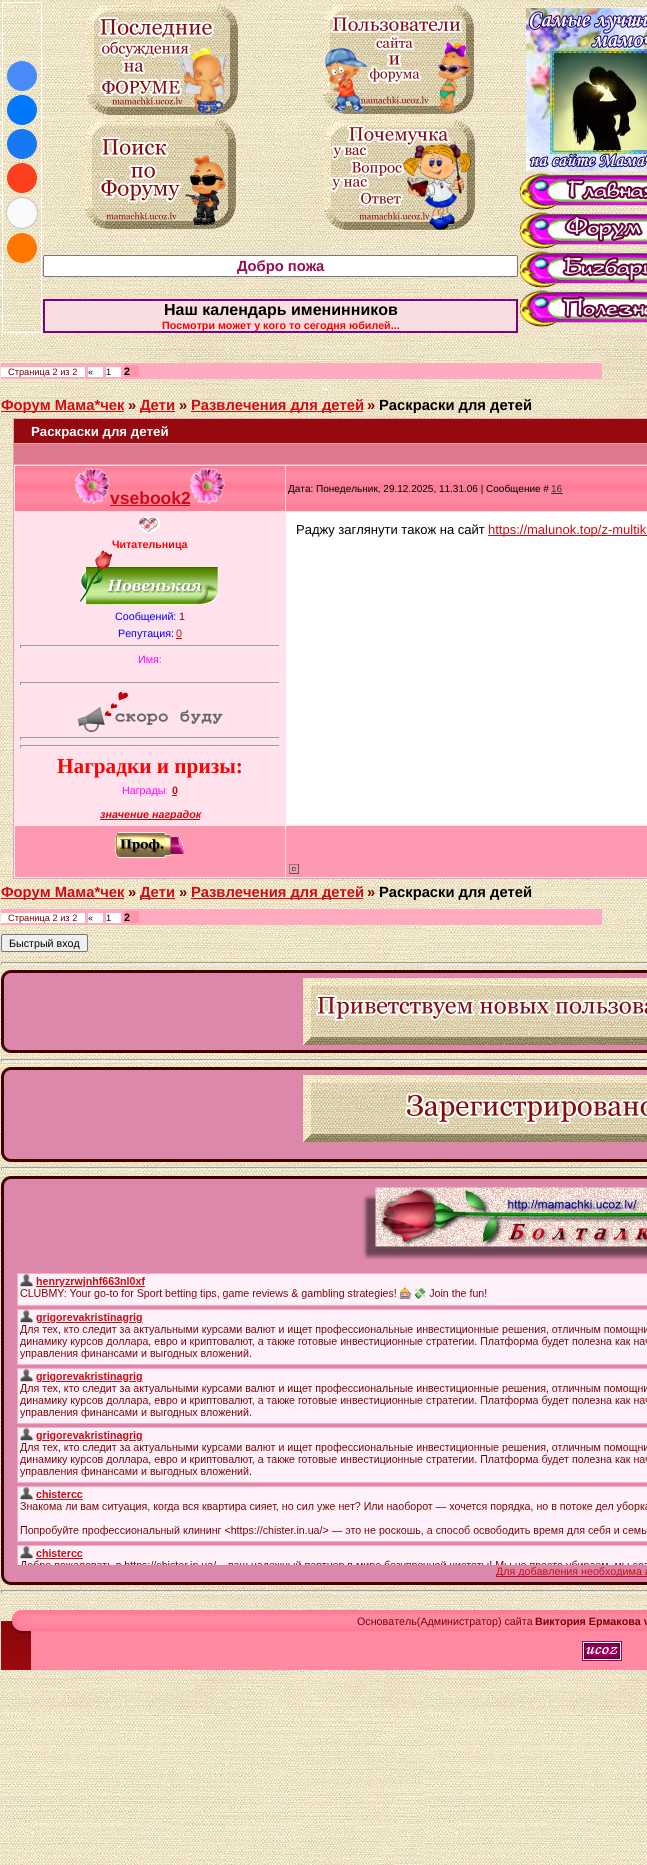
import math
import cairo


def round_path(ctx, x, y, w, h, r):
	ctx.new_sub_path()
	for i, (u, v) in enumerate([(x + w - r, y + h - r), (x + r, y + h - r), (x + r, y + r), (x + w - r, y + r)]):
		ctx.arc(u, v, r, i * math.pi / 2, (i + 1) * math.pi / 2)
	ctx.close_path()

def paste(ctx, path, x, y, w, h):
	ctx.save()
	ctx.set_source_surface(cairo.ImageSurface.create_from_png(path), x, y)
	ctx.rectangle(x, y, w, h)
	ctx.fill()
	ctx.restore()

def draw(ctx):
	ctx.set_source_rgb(1, 1, 1)
	ctx.paint()
	paste(ctx, 'media/1.png', 0, 0, 647, 1865)
	paste(ctx, 'media/2.png', 1, 1, 646, 333)
	ctx.rectangle(2.5, 2.5, 39, 330)
	ctx.set_source_rgb(1, 1, 1)
	ctx.set_line_width(1)
	ctx.stroke()
	ctx.set_source_rgb(0.286, 0.545, 0.98)
	ctx.arc(22, 76, 15, 0, 2 * math.pi)
	ctx.fill()
	ctx.set_source_rgb(0, 0.467, 1)
	ctx.arc(22, 110, 15, 0, 2 * math.pi)
	ctx.fill()
	ctx.set_source_rgb(0.094, 0.467, 0.949)
	ctx.arc(22, 144, 15, 0, 2 * math.pi)
	ctx.fill()
	ctx.set_source_rgb(0.988, 0.247, 0.114)
	ctx.arc(22, 178, 15, 0, 2 * math.pi)
	ctx.fill()
	ctx.set_source_rgb(0.973, 0.973, 0.988)
	ctx.arc(22, 213, 15.5, 0, 2 * math.pi)
	ctx.fill_preserve()
	ctx.set_source_rgb(0.769, 0.769, 0.769)
	ctx.stroke()
	ctx.set_source_rgb(1, 0.467, 0)
	ctx.arc(22, 248, 15, 0, 2 * math.pi)
	ctx.fill()
	paste(ctx, 'media/3.png', 86, 4, 152, 111)
	paste(ctx, 'media/4.png', 322, 3, 152, 111)
	paste(ctx, 'media/5.png', 84, 118, 152, 111)
	paste(ctx, 'media/6.png', 323, 119, 152, 111)
	ctx.set_source_rgb(1, 1, 1)
	round_path(ctx, 43.5, 255.5, 474, 21, 1.5)
	ctx.fill_preserve()
	ctx.set_source_rgb(0.463, 0.463, 0.463)
	ctx.stroke()
	ctx.select_font_face('Liberation Sans', cairo.FONT_SLANT_NORMAL, cairo.FONT_WEIGHT_BOLD)
	ctx.set_font_size(14.75)
	ctx.set_source_rgb(0.592, 0.047, 0.318)
	ctx.move_to(237, 271)
	ctx.show_text('Добро пожа')
	ctx.set_source_rgb(0.969, 0.871, 0.878)
	ctx.rectangle(44, 300, 473, 32)
	ctx.fill_preserve()
	ctx.set_source_rgb(0.502, 0, 0.502)
	ctx.set_line_width(2)
	ctx.stroke()
	ctx.set_font_size(16)
	ctx.set_source_rgb(0, 0, 0)
	ctx.move_to(164, 315)
	ctx.show_text('Наш календарь именинников')
	ctx.set_font_size(10.7)
	ctx.set_source_rgb(1, 0, 0)
	ctx.move_to(162, 329)
	ctx.show_text('Посмотри может у кого то сегодня юбилей...')
	paste(ctx, 'media/7.png', 526, 8, 121, 163)
	paste(ctx, 'media/8.png', 519, 173, 128, 37)
	paste(ctx, 'media/9.png', 519, 212, 128, 37)
	paste(ctx, 'media/10.png', 519, 251, 128, 37)
	paste(ctx, 'media/11.png', 519, 290, 128, 37)
	ctx.set_source_rgb(1, 0.667, 0.753)
	ctx.rectangle(1, 363, 601, 16)
	ctx.fill()
	ctx.set_source_rgb(1, 1, 1)
	ctx.rectangle(1, 367, 84, 10)
	ctx.fill()
	ctx.select_font_face('Liberation Sans')
	ctx.set_font_size(9.25)
	ctx.set_source_rgb(0.475, 0, 0)
	ctx.move_to(8, 375)
	ctx.show_text('Страница 2 из 2')
	ctx.set_source_rgb(1, 1, 1)
	ctx.rectangle(88, 367, 15, 10)
	ctx.fill()
	ctx.set_source_rgb(0, 0, 0)
	ctx.move_to(88, 375)
	ctx.show_text('«')
	ctx.set_source_rgb(1, 1, 1)
	ctx.rectangle(106, 367, 15, 10)
	ctx.fill()
	ctx.set_source_rgb(0, 0, 0)
	ctx.move_to(106, 375)
	ctx.show_text('1')
	ctx.set_source_rgb(1, 0.584, 0.663)
	ctx.rectangle(124, 365, 15, 12)
	ctx.fill()
	ctx.select_font_face('Liberation Sans', cairo.FONT_SLANT_NORMAL, cairo.FONT_WEIGHT_BOLD)
	ctx.set_font_size(10.7)
	ctx.set_source_rgb(0, 0, 0)
	ctx.move_to(124, 375)
	ctx.show_text('2')
	ctx.set_source_rgb(0.82, 0.043, 0.071)
	ctx.rectangle(1, 411, 123, 1)
	ctx.fill()
	ctx.set_font_size(14.75)
	ctx.move_to(1, 410)
	ctx.show_text('Форум Мама*чек')
	ctx.set_source_rgb(0.475, 0, 0)
	ctx.move_to(128, 410)
	ctx.show_text('»')
	ctx.set_source_rgb(0.82, 0.043, 0.071)
	ctx.rectangle(140, 411, 35, 1)
	ctx.fill()
	ctx.move_to(140, 410)
	ctx.show_text('Дети')
	ctx.set_source_rgb(0.475, 0, 0)
	ctx.move_to(179, 410)
	ctx.show_text('»')
	ctx.set_source_rgb(0.82, 0.043, 0.071)
	ctx.rectangle(191, 411, 172, 1)
	ctx.fill()
	ctx.move_to(191, 410)
	ctx.show_text('Развлечения для детей')
	ctx.set_source_rgb(0.475, 0, 0)
	ctx.move_to(367, 410)
	ctx.show_text('»')
	ctx.set_source_rgb(0, 0, 0)
	ctx.move_to(379, 410)
	ctx.show_text('Раскраски для детей')
	ctx.set_source_rgb(0.894, 0.647, 0.718)
	ctx.rectangle(13, 418, 634, 461)
	ctx.fill()
	ctx.set_source_rgb(0.592, 0.035, 0.059)
	ctx.rectangle(14, 419, 633, 24)
	ctx.fill()
	ctx.set_font_size(13.25)
	ctx.set_source_rgb(1, 1, 1)
	ctx.move_to(31, 436)
	ctx.show_text('Раскраски для детей')
	ctx.set_source_rgb(0.867, 0.475, 0.549)
	ctx.rectangle(14, 444, 633, 20)
	ctx.fill()
	ctx.set_source_rgb(1, 0.886, 0.922)
	ctx.rectangle(14, 465, 633, 413)
	ctx.fill()
	paste(ctx, 'media/12.png', 286, 466, 361, 45)
	ctx.select_font_face('Liberation Sans')
	ctx.set_font_size(10)
	ctx.set_source_rgb(0, 0, 0)
	ctx.move_to(288, 492)
	ctx.show_text('Дата: Понедельник, 29.12.2025, 11.31.06 | Сообщение #')
	ctx.set_source_rgb(0.2, 0.2, 0.2)
	ctx.move_to(551, 492)
	ctx.show_text('16')
	ctx.rectangle(551, 493, 12, 1)
	ctx.fill()
	paste(ctx, 'media/13.png', 15, 466, 270, 45)
	paste(ctx, 'media/14.png', 75, 468, 35, 36)
	ctx.select_font_face('Liberation Sans', cairo.FONT_SLANT_NORMAL, cairo.FONT_WEIGHT_BOLD)
	ctx.set_font_size(17.5)
	ctx.set_source_rgb(0.82, 0.043, 0.071)
	ctx.move_to(110, 504)
	ctx.show_text('vsebook2')
	ctx.rectangle(110, 505, 80, 1)
	ctx.fill()
	paste(ctx, 'media/14.png', 190, 468, 35, 36)
	ctx.set_source_rgb(1, 1, 1)
	ctx.rectangle(286, 512, 361, 313)
	ctx.fill()
	ctx.select_font_face('Liberation Sans')
	ctx.set_font_size(13)
	ctx.set_source_rgb(0, 0, 0)
	ctx.move_to(296, 534)
	ctx.show_text('Раджу заглянути також на сайт')
	ctx.set_source_rgb(0.82, 0.043, 0.071)
	ctx.rectangle(488, 535, 159, 1)
	ctx.fill()
	ctx.move_to(488, 534)
	ctx.show_text('https://malunok.top/z-multik')
	paste(ctx, 'media/15.png', 139, 517, 21, 16)
	ctx.select_font_face('Liberation Sans', cairo.FONT_SLANT_NORMAL, cairo.FONT_WEIGHT_BOLD)
	ctx.set_font_size(10.7)
	ctx.set_source_rgb(1, 0, 0)
	ctx.move_to(112, 548)
	ctx.show_text('Читательница')
	paste(ctx, 'media/16.png', 80, 550, 138, 55)
	ctx.select_font_face('Liberation Sans')
	ctx.set_source_rgb(0, 0, 1)
	ctx.move_to(115, 620)
	ctx.show_text('Сообщений:')
	ctx.set_source_rgb(0.475, 0, 0)
	ctx.move_to(179, 620)
	ctx.show_text('1')
	ctx.set_source_rgb(0, 0, 1)
	ctx.move_to(118, 637)
	ctx.show_text('Репутация:')
	ctx.set_source_rgb(0.82, 0.043, 0.071)
	ctx.move_to(176, 637)
	ctx.show_text('0')
	ctx.rectangle(176, 638, 6, 1)
	ctx.fill()
	ctx.set_source_rgb(0.624, 0.624, 0.624)
	ctx.rectangle(20, 645, 260, 1)
	ctx.fill()
	ctx.set_source_rgb(0.933, 0.933, 0.933)
	ctx.rectangle(279, 645, 1, 3)
	ctx.rectangle(20, 647, 260, 1)
	ctx.fill()
	ctx.set_source_rgb(0.624, 0.624, 0.624)
	ctx.rectangle(20, 645, 1, 3)
	ctx.fill()
	ctx.set_source_rgb(1, 0, 1)
	ctx.move_to(138, 663)
	ctx.show_text('Имя:')
	ctx.set_source_rgb(0.624, 0.624, 0.624)
	ctx.rectangle(20, 682, 260, 1)
	ctx.fill()
	ctx.set_source_rgb(0.933, 0.933, 0.933)
	ctx.rectangle(279, 682, 1, 3)
	ctx.rectangle(20, 684, 260, 1)
	ctx.fill()
	ctx.set_source_rgb(0.624, 0.624, 0.624)
	ctx.rectangle(20, 682, 1, 3)
	ctx.fill()
	paste(ctx, 'media/17.png', 77, 692, 146, 40)
	ctx.rectangle(20, 737, 260, 1)
	ctx.fill()
	ctx.set_source_rgb(0.933, 0.933, 0.933)
	ctx.rectangle(279, 737, 1, 3)
	ctx.rectangle(20, 739, 260, 1)
	ctx.fill()
	ctx.set_source_rgb(0.624, 0.624, 0.624)
	ctx.rectangle(20, 737, 1, 3)
	ctx.rectangle(20, 745, 260, 1)
	ctx.fill()
	ctx.set_source_rgb(0.933, 0.933, 0.933)
	ctx.rectangle(279, 745, 1, 3)
	ctx.rectangle(20, 747, 260, 1)
	ctx.fill()
	ctx.set_source_rgb(0.624, 0.624, 0.624)
	ctx.rectangle(20, 745, 1, 3)
	ctx.fill()
	ctx.select_font_face('Liberation Serif', cairo.FONT_SLANT_NORMAL, cairo.FONT_WEIGHT_BOLD)
	ctx.set_font_size(21.25)
	ctx.set_source_rgb(1, 0, 0)
	ctx.move_to(57, 773)
	ctx.show_text('Наградки и призы:')
	ctx.select_font_face('Liberation Sans')
	ctx.set_font_size(10.7)
	ctx.set_source_rgb(1, 0, 1)
	ctx.move_to(122, 794)
	ctx.show_text('Награды:')
	ctx.select_font_face('Liberation Sans', cairo.FONT_SLANT_NORMAL, cairo.FONT_WEIGHT_BOLD)
	ctx.set_source_rgb(0.82, 0.043, 0.071)
	ctx.move_to(172, 794)
	ctx.show_text('0')
	ctx.rectangle(172, 795, 5, 1)
	ctx.fill()
	ctx.rectangle(100, 819, 100, 1)
	ctx.fill()
	ctx.select_font_face('Liberation Sans', cairo.FONT_SLANT_ITALIC, cairo.FONT_WEIGHT_BOLD)
	ctx.move_to(100, 818)
	ctx.show_text('значение наградок')
	ctx.set_source_rgb(1, 0.6, 0.694)
	ctx.rectangle(15, 826, 270, 51)
	ctx.fill()
	paste(ctx, 'media/18.png', 115, 832, 69, 26)
	ctx.rectangle(286, 826, 361, 51)
	ctx.fill()
	ctx.set_source_rgb(0.502, 0.502, 0.502)
	ctx.rectangle(289, 864, 10, 1)
	ctx.fill()
	ctx.set_source_rgb(0.333, 0.333, 0.333)
	ctx.rectangle(298, 864, 1, 10)
	ctx.rectangle(289, 873, 10, 1)
	ctx.fill()
	ctx.set_source_rgb(0.502, 0.502, 0.502)
	ctx.rectangle(289, 864, 1, 10)
	ctx.fill()
	ctx.set_source_rgb(0.333, 0.333, 0.333)
	ctx.rectangle(292, 867, 4, 1)
	ctx.fill()
	ctx.set_source_rgb(0.502, 0.502, 0.502)
	ctx.rectangle(295, 867, 1, 4)
	ctx.rectangle(292, 870, 4, 1)
	ctx.fill()
	ctx.set_source_rgb(0.333, 0.333, 0.333)
	ctx.rectangle(292, 867, 1, 4)
	ctx.fill()
	ctx.set_source_rgb(0.82, 0.043, 0.071)
	ctx.rectangle(1, 898, 123, 1)
	ctx.fill()
	ctx.select_font_face('Liberation Sans', cairo.FONT_SLANT_NORMAL, cairo.FONT_WEIGHT_BOLD)
	ctx.set_font_size(14.75)
	ctx.move_to(1, 897)
	ctx.show_text('Форум Мама*чек')
	ctx.set_source_rgb(0.475, 0, 0)
	ctx.move_to(128, 897)
	ctx.show_text('»')
	ctx.set_source_rgb(0.82, 0.043, 0.071)
	ctx.rectangle(140, 898, 35, 1)
	ctx.fill()
	ctx.move_to(140, 897)
	ctx.show_text('Дети')
	ctx.set_source_rgb(0.475, 0, 0)
	ctx.move_to(179, 897)
	ctx.show_text('»')
	ctx.set_source_rgb(0.82, 0.043, 0.071)
	ctx.rectangle(191, 898, 172, 1)
	ctx.fill()
	ctx.move_to(191, 897)
	ctx.show_text('Развлечения для детей')
	ctx.set_source_rgb(0.475, 0, 0)
	ctx.move_to(367, 897)
	ctx.show_text('»')
	ctx.set_source_rgb(0, 0, 0)
	ctx.move_to(379, 897)
	ctx.show_text('Раскраски для детей')
	ctx.set_source_rgb(1, 0.667, 0.753)
	ctx.rectangle(1, 909, 601, 16)
	ctx.fill()
	ctx.set_source_rgb(1, 1, 1)
	ctx.rectangle(1, 913, 84, 10)
	ctx.fill()
	ctx.select_font_face('Liberation Sans')
	ctx.set_font_size(9.25)
	ctx.set_source_rgb(0.475, 0, 0)
	ctx.move_to(8, 921)
	ctx.show_text('Страница 2 из 2')
	ctx.set_source_rgb(1, 1, 1)
	ctx.rectangle(88, 913, 15, 10)
	ctx.fill()
	ctx.set_source_rgb(0, 0, 0)
	ctx.move_to(88, 921)
	ctx.show_text('«')
	ctx.set_source_rgb(1, 1, 1)
	ctx.rectangle(106, 913, 15, 10)
	ctx.fill()
	ctx.set_source_rgb(0, 0, 0)
	ctx.move_to(106, 921)
	ctx.show_text('1')
	ctx.set_source_rgb(1, 0.584, 0.663)
	ctx.rectangle(124, 911, 15, 12)
	ctx.fill()
	ctx.select_font_face('Liberation Sans', cairo.FONT_SLANT_NORMAL, cairo.FONT_WEIGHT_BOLD)
	ctx.set_font_size(10.7)
	ctx.set_source_rgb(0, 0, 0)
	ctx.move_to(124, 921)
	ctx.show_text('2')
	ctx.set_source_rgb(0.937, 0.937, 0.937)
	round_path(ctx, 1.5, 934.5, 86, 17, 1.5)
	ctx.fill_preserve()
	ctx.set_source_rgb(0.463, 0.463, 0.463)
	ctx.set_line_width(1)
	ctx.stroke()
	ctx.select_font_face('Liberation Sans')
	ctx.set_source_rgb(0, 0, 0)
	ctx.move_to(9, 947)
	ctx.show_text('Быстрый вход')
	ctx.set_source_rgb(0.624, 0.624, 0.624)
	ctx.rectangle(1, 962, 646, 1)
	ctx.fill()
	ctx.set_source_rgb(0.933, 0.933, 0.933)
	ctx.rectangle(1, 964, 646, 1)
	ctx.fill()
	ctx.set_source_rgb(0.624, 0.624, 0.624)
	ctx.rectangle(1, 962, 1, 3)
	ctx.fill()
	ctx.set_source_rgb(0.867, 0.533, 0.667)
	round_path(ctx, 2.5, 971.5, 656, 80, 8.5)
	ctx.fill_preserve()
	ctx.set_source_rgb(0.267, 0, 0)
	ctx.set_line_width(3)
	ctx.stroke()
	paste(ctx, 'media/19.png', 303, 978, 344, 67)
	ctx.set_source_rgb(0.624, 0.624, 0.624)
	ctx.rectangle(1, 1059, 646, 1)
	ctx.fill()
	ctx.set_source_rgb(0.933, 0.933, 0.933)
	ctx.rectangle(1, 1061, 646, 1)
	ctx.fill()
	ctx.set_source_rgb(0.624, 0.624, 0.624)
	ctx.rectangle(1, 1059, 1, 3)
	ctx.fill()
	ctx.set_source_rgb(0.867, 0.533, 0.667)
	round_path(ctx, 2.5, 1068.5, 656, 92, 8.5)
	ctx.fill_preserve()
	ctx.set_source_rgb(0.267, 0, 0)
	ctx.stroke()
	paste(ctx, 'media/20.png', 303, 1075, 344, 67)
	ctx.set_source_rgb(0.624, 0.624, 0.624)
	ctx.rectangle(1, 1167, 646, 1)
	ctx.fill()
	ctx.set_source_rgb(0.933, 0.933, 0.933)
	ctx.rectangle(1, 1169, 646, 1)
	ctx.fill()
	ctx.set_source_rgb(0.624, 0.624, 0.624)
	ctx.rectangle(1, 1167, 1, 3)
	ctx.fill()
	ctx.set_source_rgb(0.867, 0.533, 0.667)
	round_path(ctx, 2.5, 1177.5, 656, 406, 8.5)
	ctx.fill_preserve()
	ctx.set_source_rgb(0.267, 0, 0)
	ctx.stroke()
	paste(ctx, 'media/21.png', 362, 1187, 285, 73)
	paste(ctx, 'media/22.png', 17, 1273, 630, 292)
	ctx.set_source_rgb(0.82, 0.043, 0.071)
	ctx.rectangle(496, 1576, 151, 1)
	ctx.fill()
	ctx.move_to(496, 1575)
	ctx.show_text('Для добавления необходима а')
	ctx.set_source_rgb(0.624, 0.624, 0.624)
	ctx.rectangle(1, 1590, 646, 1)
	ctx.fill()
	ctx.set_source_rgb(0.933, 0.933, 0.933)
	ctx.rectangle(1, 1592, 646, 1)
	ctx.fill()
	ctx.set_source_rgb(0.624, 0.624, 0.624)
	ctx.rectangle(1, 1590, 1, 3)
	ctx.fill()
	paste(ctx, 'media/23.png', 1, 1610, 30, 21)
	paste(ctx, 'media/24.png', 31, 1610, 616, 21)
	ctx.set_source_rgb(0.475, 0, 0)
	ctx.move_to(357, 1625)
	ctx.show_text('Основатель(Администратор) сайта')
	ctx.select_font_face('Liberation Sans', cairo.FONT_SLANT_NORMAL, cairo.FONT_WEIGHT_BOLD)
	ctx.move_to(535, 1625)
	ctx.show_text('Виктория Ермакова v')
	paste(ctx, 'media/25.png', 1, 1631, 30, 39)
	ctx.set_source_rgb(1, 0.541, 0.635)
	ctx.rectangle(31, 1631, 616, 39)
	ctx.fill()
	paste(ctx, 'media/26.png', 582, 1641, 40, 20)


surface = cairo.ImageSurface(cairo.FORMAT_RGB24, 647, 1865)
ctx = cairo.Context(surface)
options = cairo.FontOptions()
options.set_hint_metrics(cairo.HINT_METRICS_OFF)
options.set_hint_style(cairo.HINT_STYLE_NONE)
ctx.set_font_options(options)
ctx.set_miter_limit(4)
draw(ctx)
surface.write_to_png('image.png')
